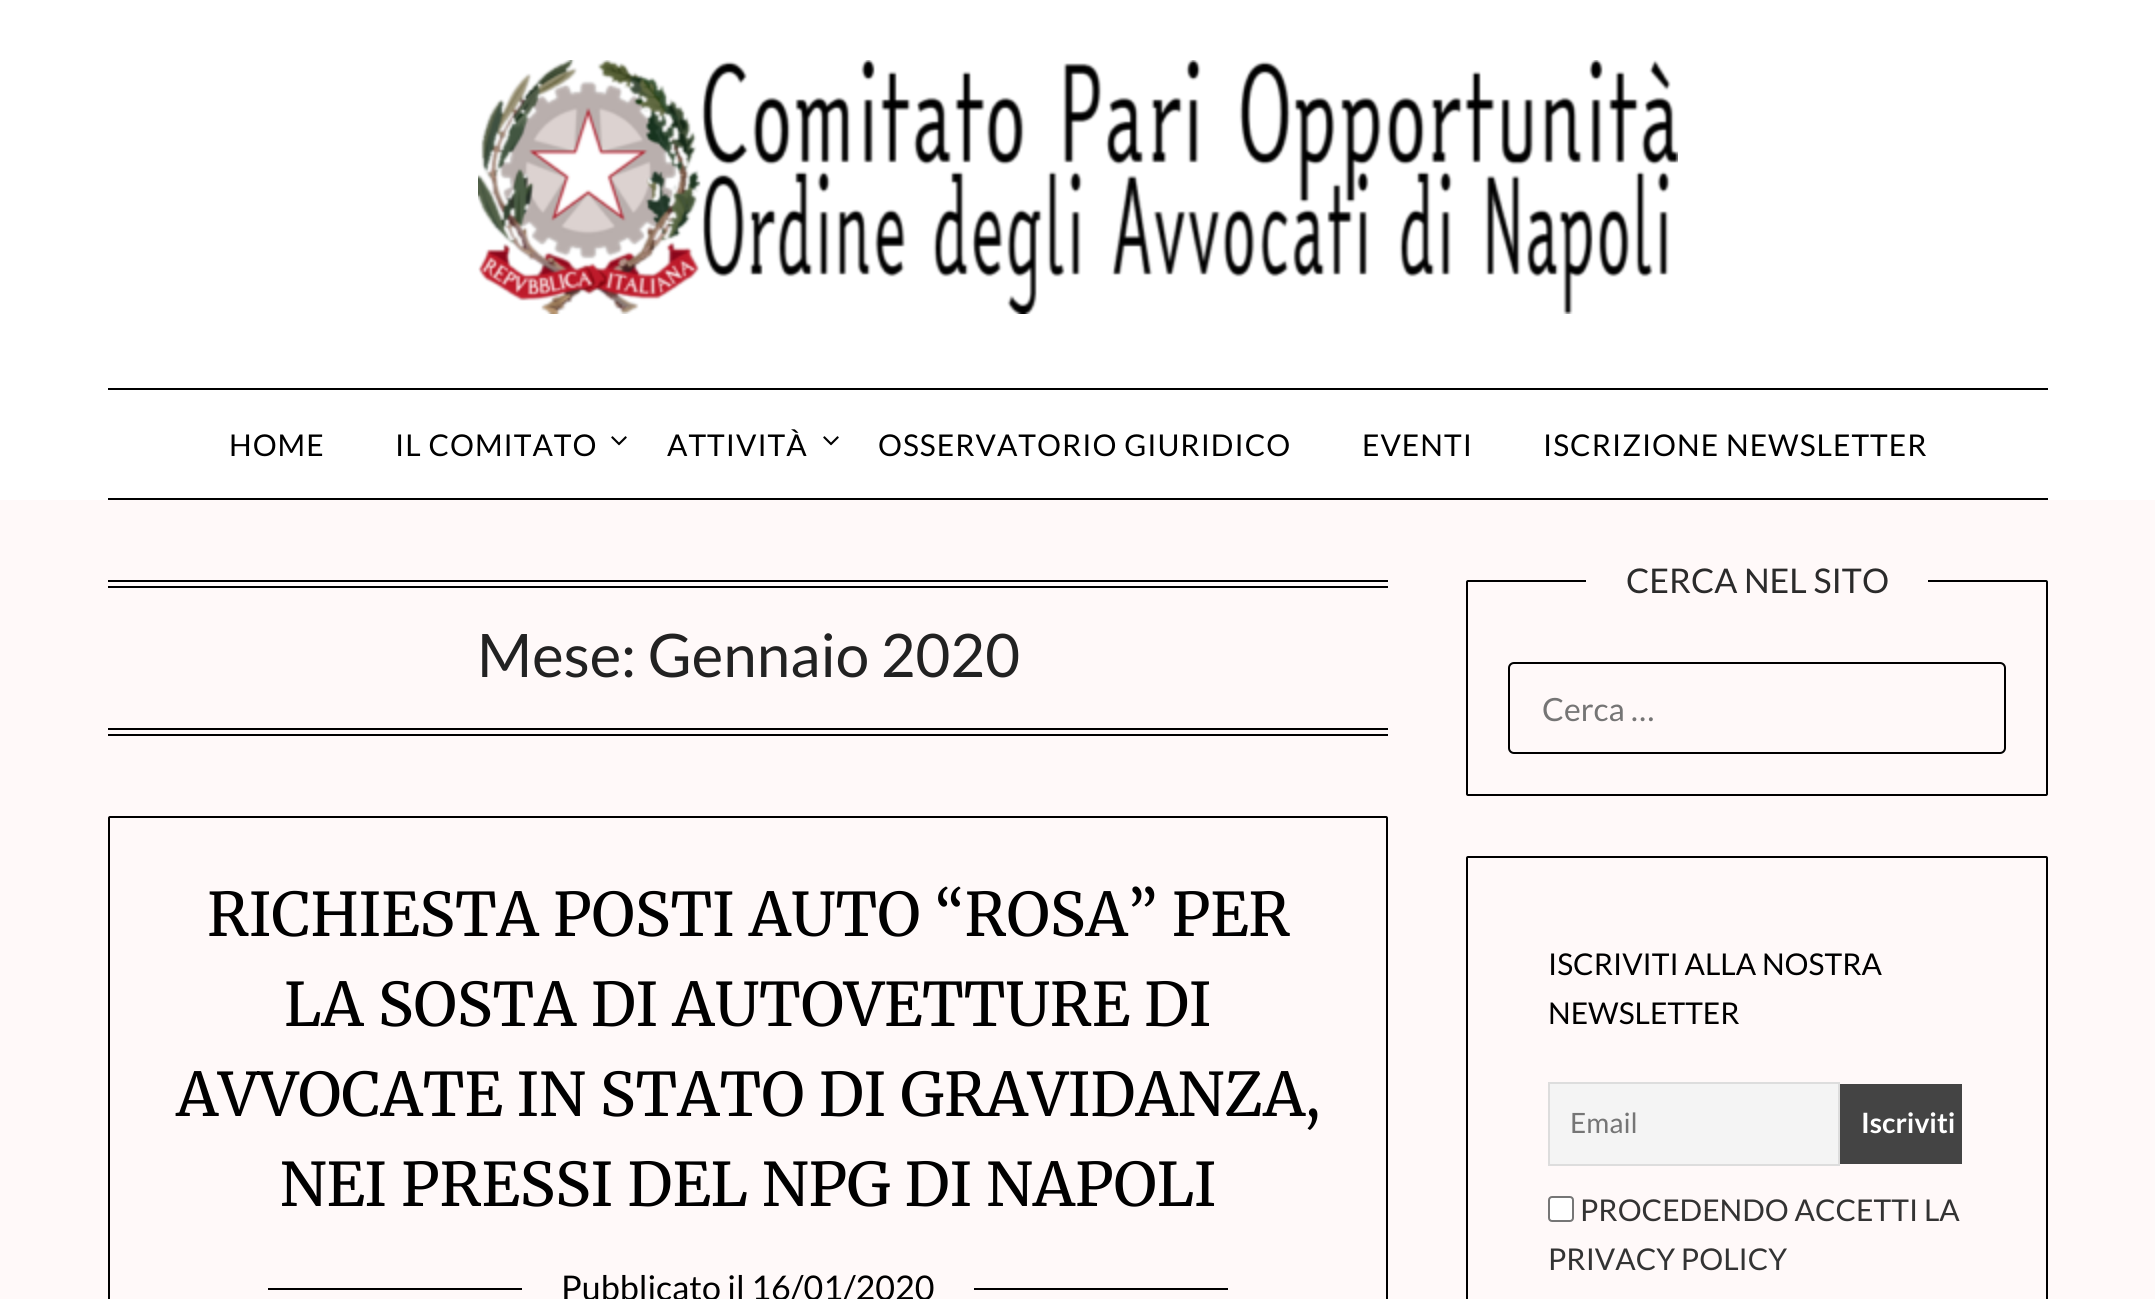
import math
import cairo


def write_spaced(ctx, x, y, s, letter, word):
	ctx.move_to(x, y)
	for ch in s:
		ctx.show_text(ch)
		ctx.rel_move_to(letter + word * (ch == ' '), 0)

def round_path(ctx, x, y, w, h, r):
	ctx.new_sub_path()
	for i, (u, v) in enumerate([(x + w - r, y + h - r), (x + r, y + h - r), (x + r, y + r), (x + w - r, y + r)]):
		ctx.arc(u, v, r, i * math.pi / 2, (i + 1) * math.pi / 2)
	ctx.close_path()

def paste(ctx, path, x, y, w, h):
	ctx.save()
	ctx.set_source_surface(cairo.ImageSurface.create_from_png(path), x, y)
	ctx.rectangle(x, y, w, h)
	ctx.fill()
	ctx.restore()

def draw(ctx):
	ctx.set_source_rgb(1, 0.976, 0.976)
	ctx.paint()
	ctx.set_source_rgb(1, 1, 1)
	ctx.rectangle(0, 0, 2155, 500)
	ctx.fill()
	paste(ctx, 'media/1.png', 478, 60, 1200, 254)
	ctx.set_source_rgb(0, 0, 0)
	ctx.rectangle(108, 388, 1940, 2)
	ctx.fill()
	ctx.rectangle(108, 498, 1940, 2)
	ctx.fill()
	ctx.select_font_face('Lato')
	ctx.set_font_size(30)
	write_spaced(ctx, 229, 456, 'HOME', 1, 0)
	write_spaced(ctx, 395, 456, 'IL COMITATO', 1, 0)
	paste(ctx, 'media/2.png', 611, 436, 16, 10)
	write_spaced(ctx, 667, 456, 'ATTIVITÀ', 1, 0)
	paste(ctx, 'media/2.png', 823, 436, 16, 10)
	for x, y, s in [
		(878, 456, 'OSSERVATORIO GIURIDICO'),
		(1362, 456, 'EVENTI'),
		(1543, 456, 'ISCRIZIONE NEWSLETTER'),
	]:
		write_spaced(ctx, x, y, s, 1, 0)
	ctx.rectangle(108, 580, 1280, 2)
	ctx.rectangle(108, 586, 1280, 2)
	ctx.rectangle(108, 728, 1280, 2)
	ctx.rectangle(108, 734, 1280, 2)
	ctx.fill()
	ctx.set_font_size(60)
	ctx.set_source_rgb(0.133, 0.133, 0.133)
	ctx.move_to(477, 677)
	ctx.show_text('Mese: Gennaio 2020')
	round_path(ctx, 109, 817, 1278, 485, 1)
	ctx.set_source_rgb(0, 0, 0)
	ctx.stroke()
	ctx.select_font_face('Merriweather')
	for x, y, s in [
		(207, 936, 'RICHIESTA POSTI AUTO “ROSA” PER'),
		(284, 1026, 'LA SOSTA DI AUTOVETTURE DI'),
		(176, 1116, 'AVVOCATE IN STATO DI GRAVIDANZA,'),
		(280, 1206, 'NEI PRESSI DEL NPG DI NAPOLI'),
	]:
		ctx.move_to(x, y)
		ctx.show_text(s)
	ctx.rectangle(268, 1288, 960, 2)
	ctx.fill()
	ctx.set_source_rgb(1, 0.976, 0.976)
	ctx.rectangle(522, 1288, 452, 2)
	ctx.fill()
	ctx.select_font_face('Lato')
	ctx.set_font_size(34)
	ctx.set_source_rgb(0, 0, 0)
	ctx.move_to(561, 1300)
	ctx.show_text('Pubblicato il 16/01/2020')
	round_path(ctx, 1467, 581, 580, 214, 1)
	ctx.stroke()
	ctx.set_source_rgb(1, 0.976, 0.976)
	ctx.rectangle(1586, 580, 342, 2)
	ctx.fill()
	ctx.set_source_rgb(0.169, 0.169, 0.169)
	ctx.move_to(1626, 593)
	ctx.show_text('CERCA NEL SITO')
	round_path(ctx, 1509, 663, 496, 90, 5)
	ctx.set_source_rgb(0, 0, 0)
	ctx.stroke()
	ctx.set_font_size(32)
	ctx.set_source_rgb(0.459, 0.459, 0.459)
	ctx.move_to(1542, 721)
	ctx.show_text('Cerca …')
	round_path(ctx, 1467, 857, 580, 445, 1)
	ctx.set_source_rgb(0, 0, 0)
	ctx.stroke()
	ctx.set_font_size(30)
	ctx.move_to(1548, 975)
	ctx.show_text('ISCRIVITI ALLA NOSTRA')
	ctx.move_to(1548, 1024)
	ctx.show_text('NEWSLETTER')
	ctx.set_source_rgb(0.957, 0.957, 0.957)
	ctx.rectangle(1549, 1083, 290, 82)
	ctx.fill_preserve()
	ctx.set_source_rgb(0.867, 0.867, 0.867)
	ctx.stroke()
	ctx.set_font_size(28)
	ctx.set_source_rgb(0.459, 0.459, 0.459)
	ctx.move_to(1570, 1133)
	ctx.show_text('Email')
	ctx.set_source_rgb(0.267, 0.267, 0.267)
	ctx.rectangle(1840, 1084, 122, 80)
	ctx.fill()
	ctx.select_font_face('Lato', cairo.FONT_SLANT_NORMAL, cairo.FONT_WEIGHT_BOLD)
	ctx.set_source_rgb(1, 1, 1)
	ctx.move_to(1861, 1133)
	ctx.show_text('Iscriviti')
	round_path(ctx, 1549, 1197, 24, 24, 3)
	ctx.fill_preserve()
	ctx.set_source_rgb(0.463, 0.463, 0.463)
	ctx.stroke()
	ctx.select_font_face('Lato')
	ctx.set_font_size(30)
	ctx.set_source_rgb(0.2, 0.2, 0.2)
	ctx.move_to(1580, 1221)
	ctx.show_text('PROCEDENDO ACCETTI LA')
	ctx.move_to(1548, 1270)
	ctx.show_text('PRIVACY POLICY')


surface = cairo.ImageSurface(cairo.FORMAT_RGB24, 2155, 1299)
ctx = cairo.Context(surface)
options = cairo.FontOptions()
options.set_hint_metrics(cairo.HINT_METRICS_OFF)
options.set_hint_style(cairo.HINT_STYLE_NONE)
ctx.set_font_options(options)
ctx.set_miter_limit(4)
draw(ctx)
surface.write_to_png('image.png')
